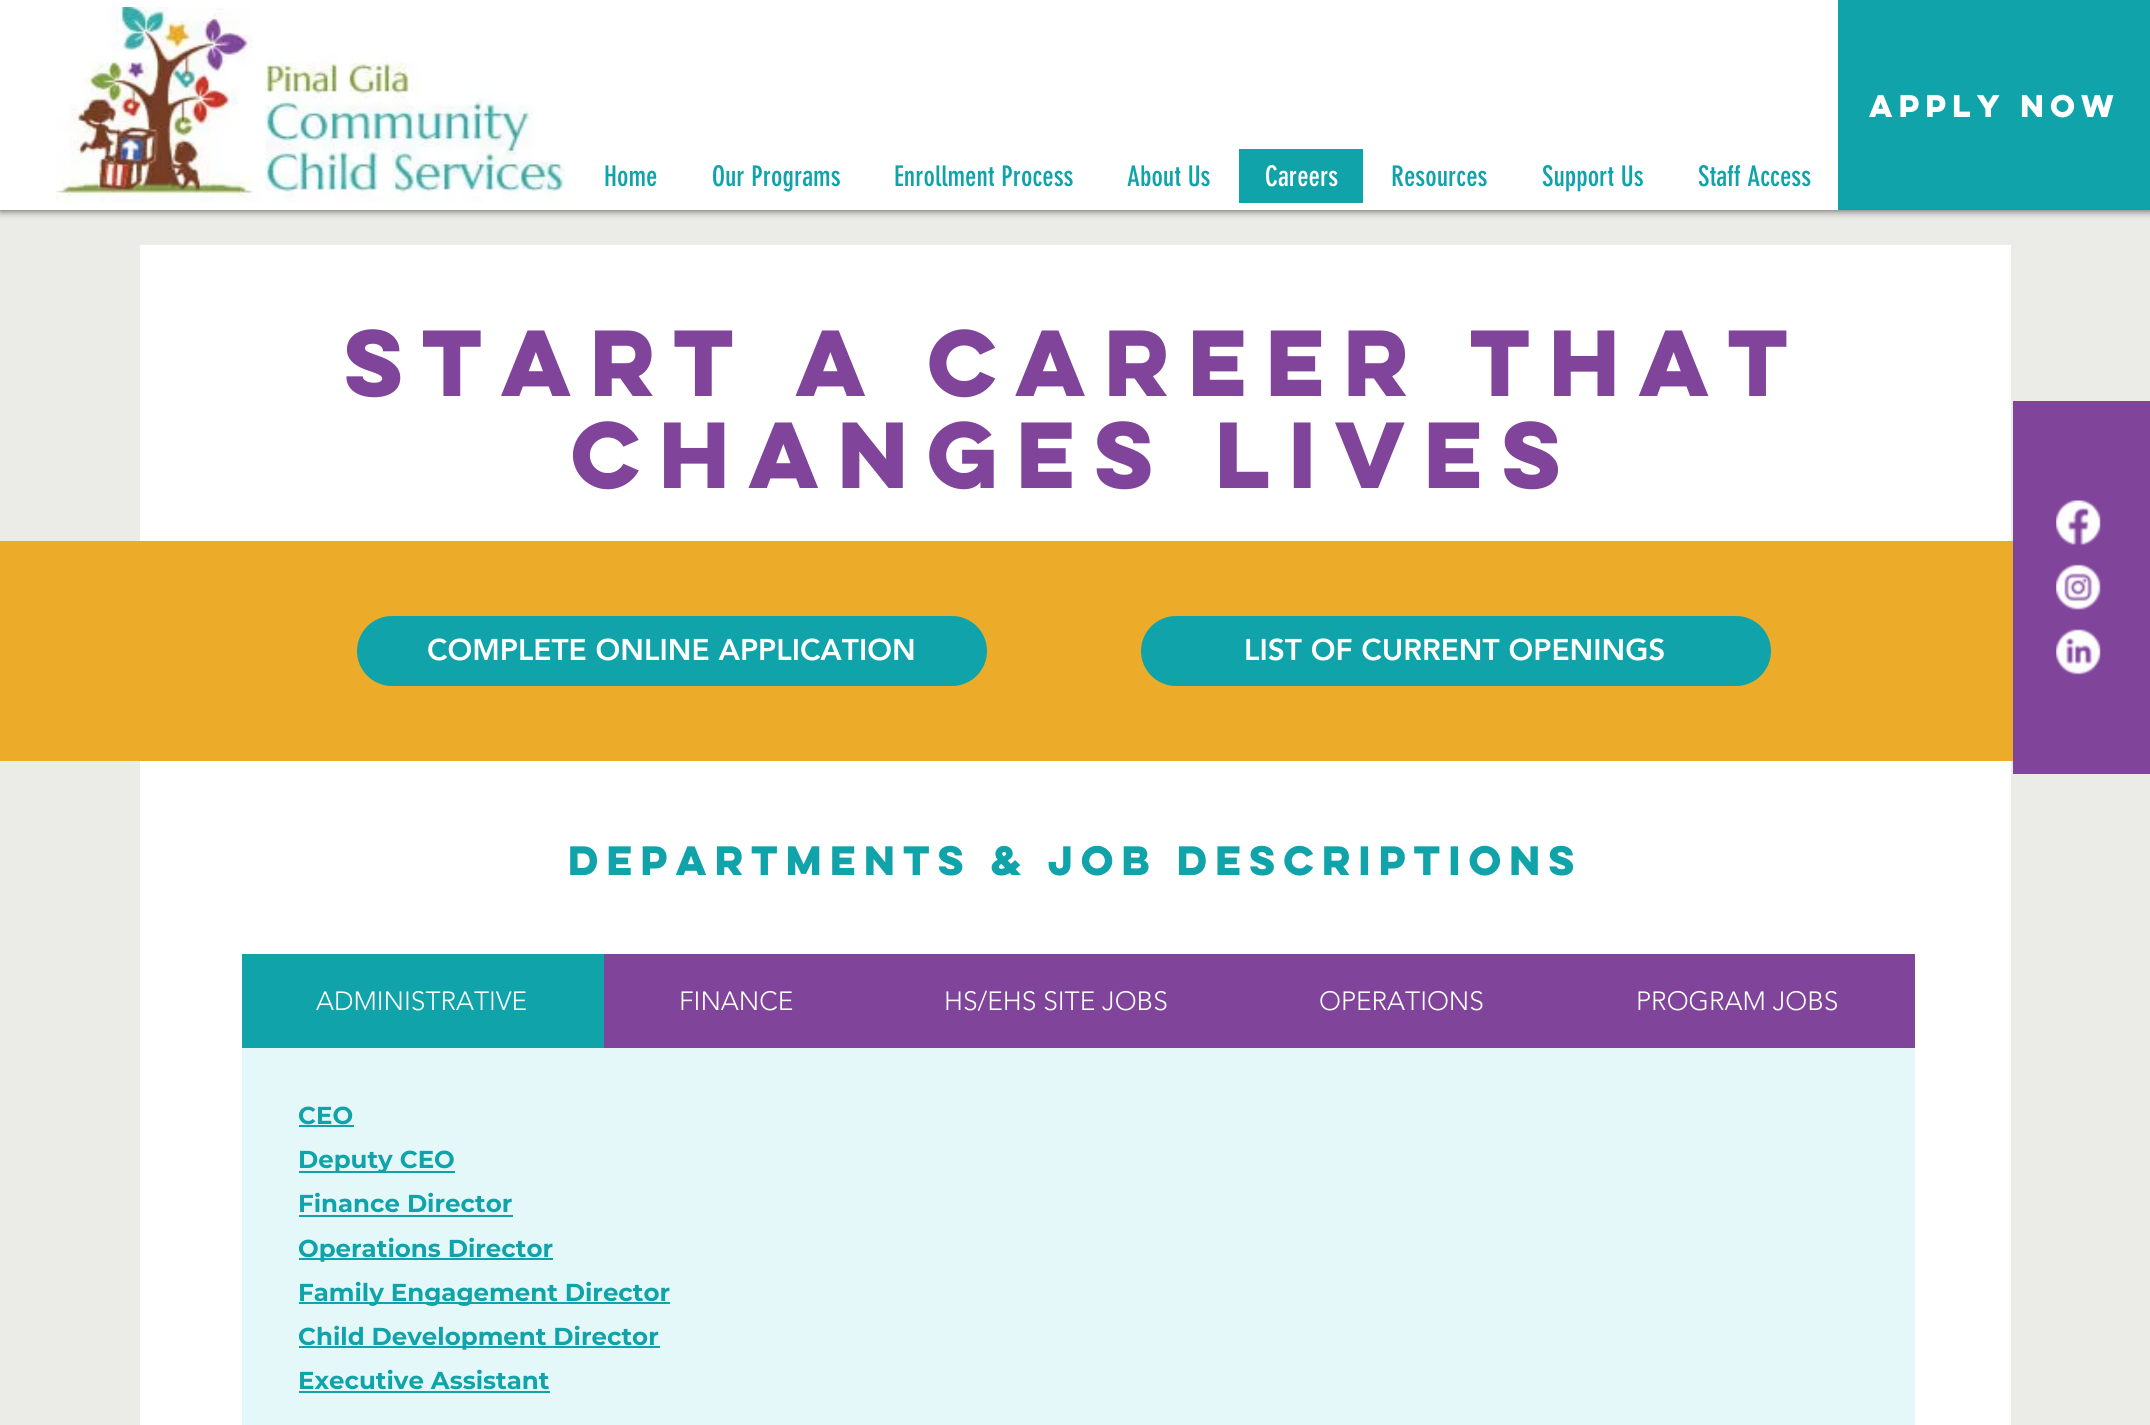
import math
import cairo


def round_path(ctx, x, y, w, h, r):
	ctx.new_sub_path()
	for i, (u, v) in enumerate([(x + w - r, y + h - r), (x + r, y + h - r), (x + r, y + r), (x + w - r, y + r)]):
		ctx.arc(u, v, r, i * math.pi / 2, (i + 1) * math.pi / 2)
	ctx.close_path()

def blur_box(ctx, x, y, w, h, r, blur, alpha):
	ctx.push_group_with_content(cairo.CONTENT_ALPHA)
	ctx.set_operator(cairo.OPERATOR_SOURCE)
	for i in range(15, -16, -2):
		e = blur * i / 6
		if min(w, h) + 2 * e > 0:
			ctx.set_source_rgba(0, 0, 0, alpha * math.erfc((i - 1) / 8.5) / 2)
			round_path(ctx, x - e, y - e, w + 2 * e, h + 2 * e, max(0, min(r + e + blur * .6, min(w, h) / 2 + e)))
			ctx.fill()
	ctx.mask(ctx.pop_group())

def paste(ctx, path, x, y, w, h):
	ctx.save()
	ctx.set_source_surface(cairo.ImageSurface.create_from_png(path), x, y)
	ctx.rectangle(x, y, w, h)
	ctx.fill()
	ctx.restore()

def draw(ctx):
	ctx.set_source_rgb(0.918, 0.918, 0.91)
	ctx.paint()
	ctx.set_source_rgb(0, 0, 0)
	blur_box(ctx, 0, 0, 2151, 210, 0, 4.5, 0.7)
	ctx.set_source_rgb(0.063, 0.639, 0.663)
	ctx.rectangle(1838, 0, 312, 210)
	ctx.fill()
	ctx.select_font_face('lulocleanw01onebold', cairo.FONT_SLANT_NORMAL, cairo.FONT_WEIGHT_BOLD)
	ctx.set_font_size(28)
	ctx.set_source_rgb(1, 1, 1)
	ctx.move_to(1869, 117)
	ctx.show_text('APPLY NOW')
	ctx.set_source_rgb(0.502, 0.267, 0.604)
	ctx.rectangle(2013, 401, 137, 373)
	ctx.fill()
	paste(ctx, 'media/1.png', 2056, 500, 45, 45)
	paste(ctx, 'media/2.png', 2056, 564, 45, 46)
	paste(ctx, 'media/3.png', 2056, 629, 45, 46)
	ctx.set_source_rgb(1, 1, 1)
	ctx.rectangle(0, 0, 1838, 210)
	ctx.fill()
	paste(ctx, 'media/4.png', 56, 7, 509, 196)
	ctx.select_font_face('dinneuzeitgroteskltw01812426')
	ctx.set_source_rgb(0.063, 0.639, 0.663)
	for x, y, s in [
		(604, 186, 'Home'),
		(712, 186, 'Our Programs'),
		(894, 186, 'Enrollment Process'),
		(1127, 186, 'About Us'),
	]:
		ctx.move_to(x, y)
		ctx.show_text(s)
	ctx.rectangle(1239, 149, 124, 54)
	ctx.fill()
	ctx.set_source_rgb(1, 1, 1)
	ctx.move_to(1265, 186)
	ctx.show_text('Careers')
	ctx.set_source_rgb(0.063, 0.639, 0.663)
	for x, y, s in [
		(1391, 186, 'Resources'),
		(1542, 186, 'Support Us'),
		(1698, 186, 'Staff Access'),
	]:
		ctx.move_to(x, y)
		ctx.show_text(s)
	ctx.set_source_rgb(1, 1, 1)
	ctx.rectangle(140, 245, 1871, 1180)
	ctx.fill()
	ctx.select_font_face('lulocleanw01onebold', cairo.FONT_SLANT_NORMAL, cairo.FONT_WEIGHT_BOLD)
	ctx.set_font_size(84)
	ctx.set_source_rgb(0.502, 0.267, 0.604)
	ctx.move_to(344, 396)
	ctx.show_text('START A CAREER THAT')
	ctx.move_to(571, 488)
	ctx.show_text('CHANGES LIVES')
	ctx.set_font_size(36.75)
	ctx.set_source_rgb(0.063, 0.639, 0.663)
	ctx.move_to(568, 875)
	ctx.show_text('departments & Job Descriptions')
	ctx.rectangle(242, 954, 362, 94)
	ctx.fill()
	ctx.select_font_face('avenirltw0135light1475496 Light')
	ctx.set_font_size(26.25)
	ctx.set_source_rgb(1, 1, 1)
	ctx.move_to(316, 1010)
	ctx.show_text('ADMINISTRATIVE')
	ctx.set_source_rgb(0.502, 0.267, 0.604)
	ctx.rectangle(604, 954, 1311, 94)
	ctx.fill()
	ctx.set_source_rgb(1, 1, 1)
	for x, y, s in [
		(679, 1010, 'FINANCE'),
		(944, 1010, 'HS/EHS SITE JOBS'),
		(1319, 1010, 'OPERATIONS'),
		(1636, 1010, 'PROGRAM JOBS'),
	]:
		ctx.move_to(x, y)
		ctx.show_text(s)
	ctx.set_source_rgb(0.898, 0.969, 0.973)
	ctx.rectangle(242, 1048, 1673, 377)
	ctx.fill()
	ctx.select_font_face('Montserrat', cairo.FONT_SLANT_NORMAL, cairo.FONT_WEIGHT_BOLD)
	ctx.set_font_size(24.5)
	ctx.set_source_rgb(0.063, 0.639, 0.663)
	ctx.move_to(298, 1124)
	ctx.show_text('CEO')
	ctx.rectangle(299, 1125, 55, 2)
	ctx.fill()
	ctx.rectangle(299, 1171, 156, 2)
	ctx.fill()
	ctx.move_to(298, 1168)
	ctx.show_text('Deputy CEO')
	ctx.move_to(298, 1212)
	ctx.show_text('Finance Director')
	ctx.rectangle(299, 1215, 214, 2)
	ctx.fill()
	ctx.rectangle(299, 1258, 254, 2)
	ctx.fill()
	ctx.move_to(298, 1257)
	ctx.show_text('Operations Director')
	ctx.rectangle(299, 1302, 371, 2)
	ctx.fill()
	ctx.move_to(298, 1301)
	ctx.show_text('Family Engagement Director')
	ctx.rectangle(299, 1346, 361, 2)
	ctx.fill()
	ctx.move_to(298, 1345)
	ctx.show_text('Child Development Director')
	ctx.move_to(298, 1389)
	ctx.show_text('Executive Assistant')
	ctx.rectangle(299, 1391, 251, 2)
	ctx.fill()
	ctx.set_source_rgb(0.922, 0.675, 0.161)
	ctx.rectangle(0, 541, 2013, 220)
	ctx.fill()
	ctx.set_source_rgb(0.063, 0.639, 0.663)
	round_path(ctx, 357, 616, 630, 70, 35)
	ctx.fill()
	ctx.select_font_face('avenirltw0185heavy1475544 Black')
	ctx.set_font_size(29.75)
	ctx.set_source_rgb(1, 1, 1)
	ctx.move_to(427, 660)
	ctx.show_text('COMPLETE ONLINE APPLICATION')
	ctx.set_source_rgb(0.063, 0.639, 0.663)
	round_path(ctx, 1141, 616, 630, 70, 35)
	ctx.fill()
	ctx.set_source_rgb(1, 1, 1)
	ctx.move_to(1244, 660)
	ctx.show_text('LIST OF CURRENT OPENINGS')


surface = cairo.ImageSurface(cairo.FORMAT_RGB24, 2150, 1425)
ctx = cairo.Context(surface)
options = cairo.FontOptions()
options.set_hint_metrics(cairo.HINT_METRICS_OFF)
options.set_hint_style(cairo.HINT_STYLE_NONE)
ctx.set_font_options(options)
ctx.set_miter_limit(4)
draw(ctx)
surface.write_to_png('image.png')
